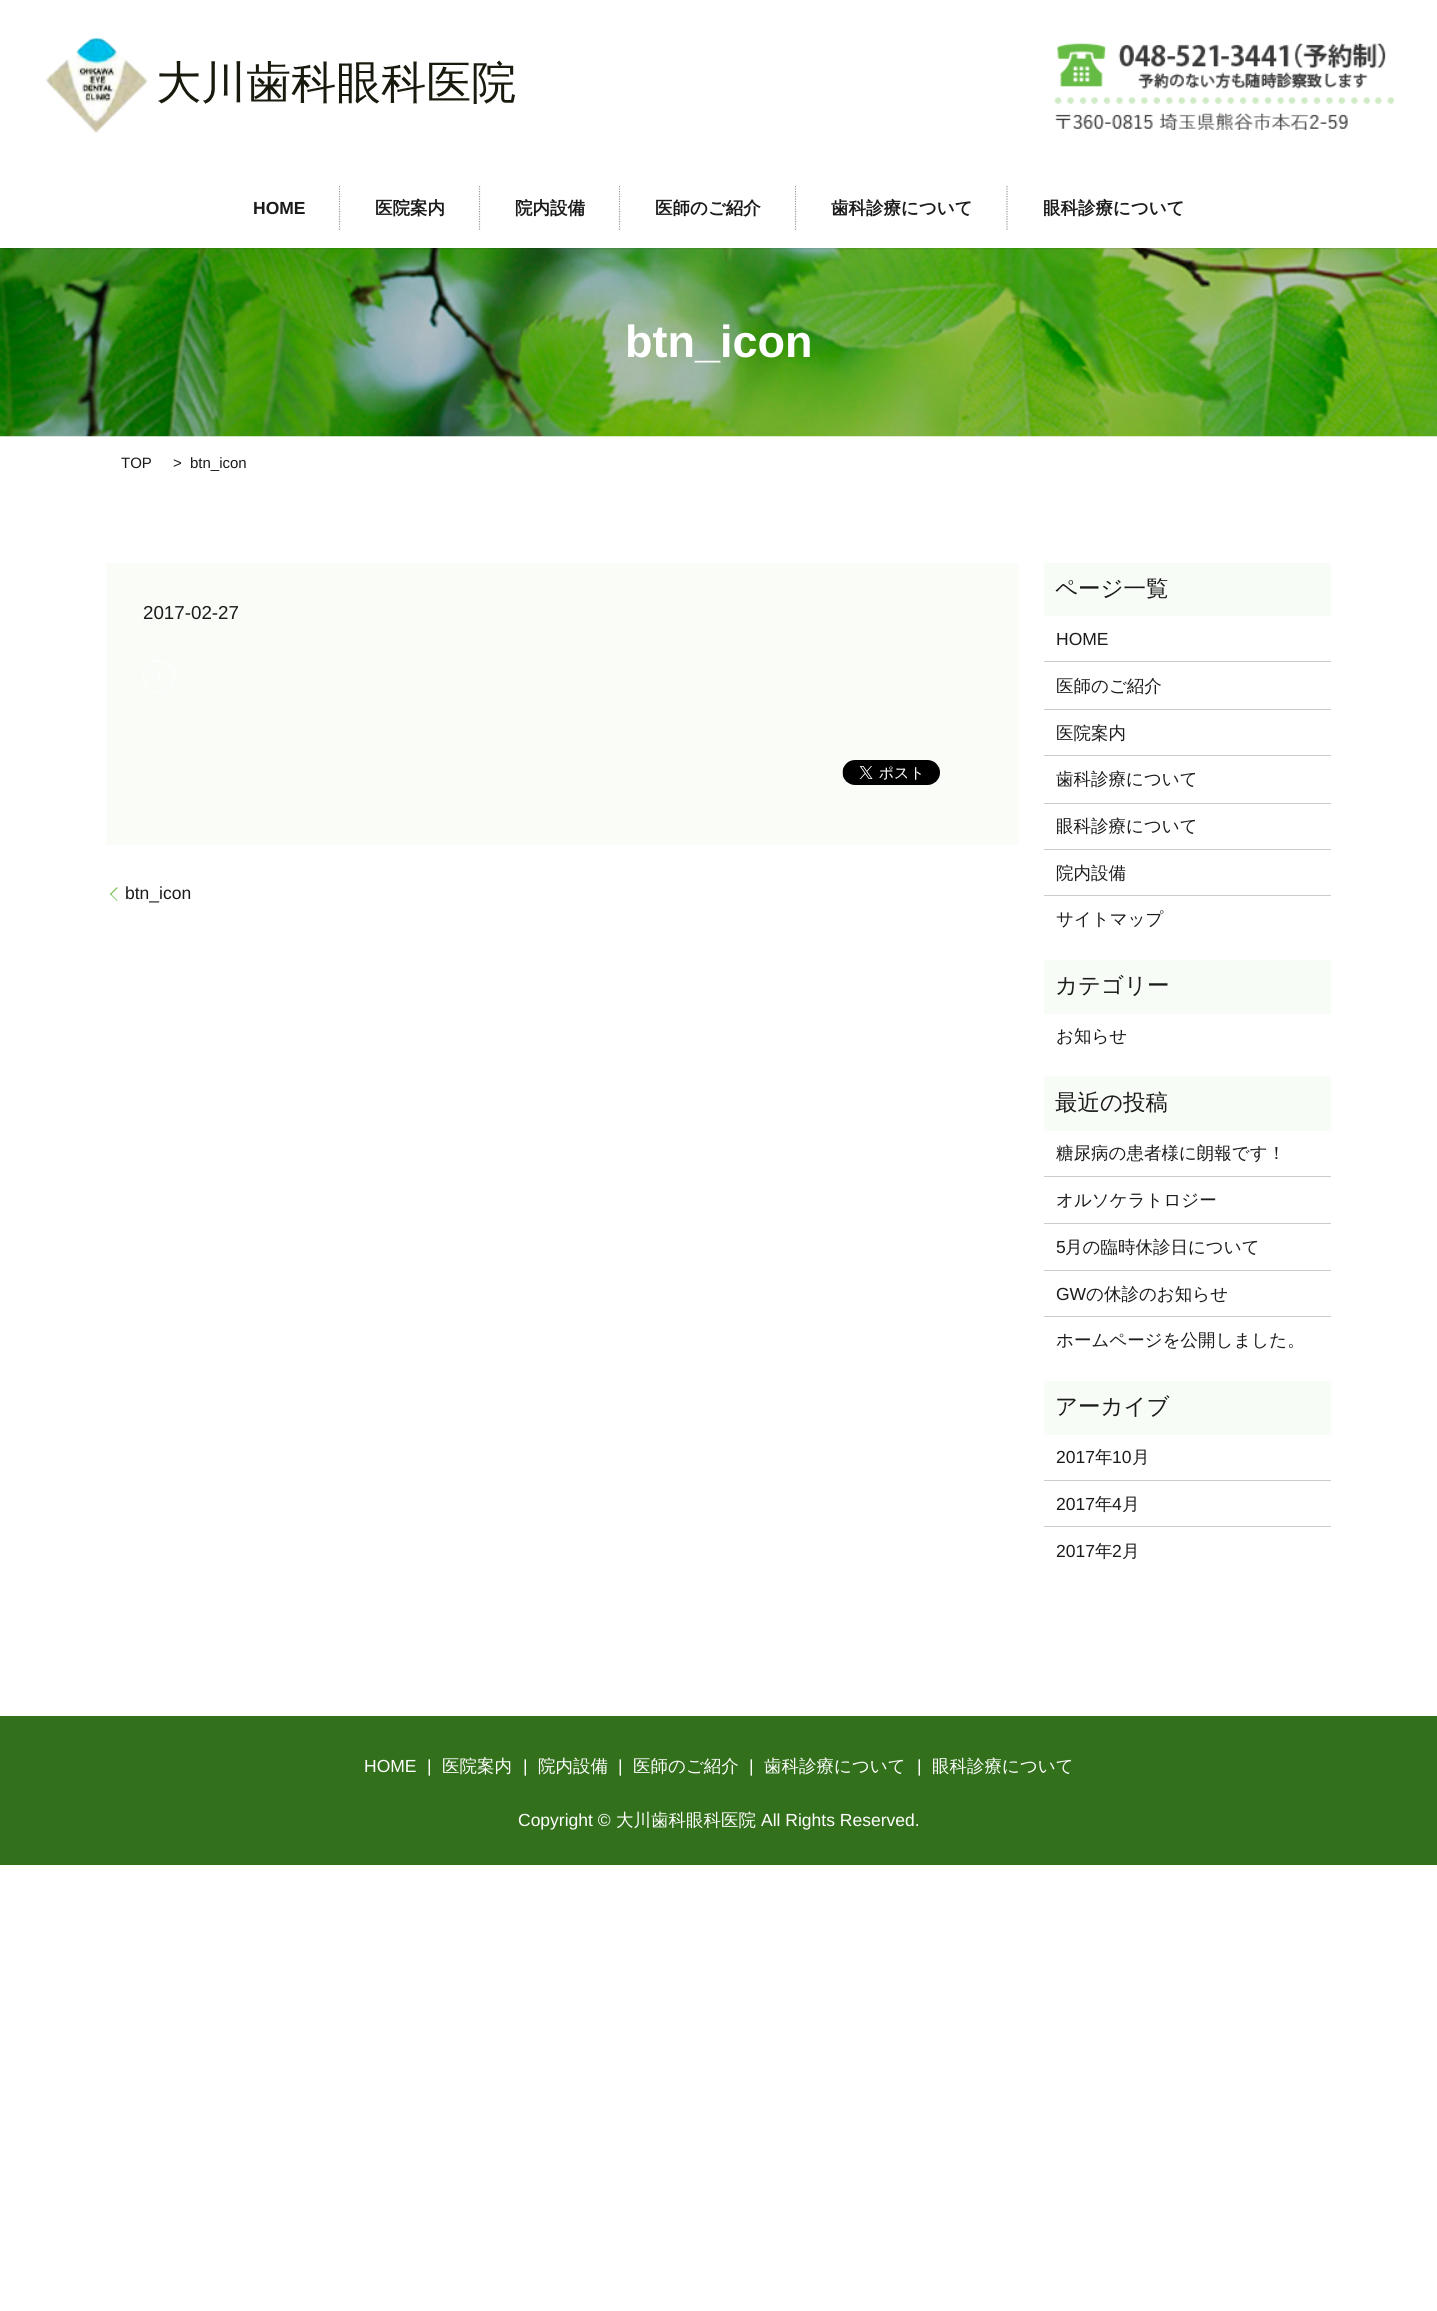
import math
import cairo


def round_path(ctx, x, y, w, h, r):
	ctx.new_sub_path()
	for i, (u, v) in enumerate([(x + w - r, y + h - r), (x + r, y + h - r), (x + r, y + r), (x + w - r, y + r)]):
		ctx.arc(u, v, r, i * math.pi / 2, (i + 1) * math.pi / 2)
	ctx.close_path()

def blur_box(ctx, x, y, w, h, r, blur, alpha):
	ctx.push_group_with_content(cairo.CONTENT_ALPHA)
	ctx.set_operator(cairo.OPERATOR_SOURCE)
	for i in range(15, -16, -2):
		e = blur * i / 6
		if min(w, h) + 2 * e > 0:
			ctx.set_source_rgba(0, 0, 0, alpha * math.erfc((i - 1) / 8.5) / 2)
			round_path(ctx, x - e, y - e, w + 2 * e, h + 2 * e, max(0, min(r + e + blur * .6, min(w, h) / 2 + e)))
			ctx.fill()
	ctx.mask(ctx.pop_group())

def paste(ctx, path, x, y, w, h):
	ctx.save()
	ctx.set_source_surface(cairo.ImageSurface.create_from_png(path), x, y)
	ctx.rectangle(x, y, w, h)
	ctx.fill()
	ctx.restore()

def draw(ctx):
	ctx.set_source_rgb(1, 1, 1)
	ctx.paint()
	paste(ctx, 'media/3.png', 0, 248, 1437, 189)
	ctx.set_source_rgb(0, 0, 0)
	blur_box(ctx, 0, 1, 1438, 248, 0, 0.5, 0.1)
	ctx.set_source_rgb(1, 1, 1)
	ctx.rectangle(0, 0, 1437, 248)
	ctx.fill()
	paste(ctx, 'media/1.png', 45, 37, 470, 96)
	paste(ctx, 'media/2.png', 1054, 43, 341, 87)
	ctx.select_font_face('Liberation Sans', cairo.FONT_SLANT_NORMAL, cairo.FONT_WEIGHT_BOLD)
	ctx.set_font_size(17.5)
	ctx.set_source_rgb(0.106, 0.106, 0.106)
	ctx.move_to(253, 214)
	ctx.show_text('HOME')
	ctx.new_path()
	ctx.move_to(339.5, 186)
	ctx.line_to(339.5, 231)
	ctx.set_source_rgb(0.612, 0.612, 0.612)
	ctx.set_line_width(1.2)
	ctx.set_dash([1.25, 1.25])
	ctx.stroke()
	ctx.select_font_face('WenQuanYi Zen Hei', cairo.FONT_SLANT_NORMAL, cairo.FONT_WEIGHT_BOLD)
	ctx.set_source_rgb(0.106, 0.106, 0.106)
	ctx.move_to(375, 214)
	ctx.show_text('医院案内')
	ctx.new_path()
	ctx.move_to(479.5, 186)
	ctx.line_to(479.5, 231)
	ctx.set_source_rgb(0.612, 0.612, 0.612)
	ctx.stroke()
	ctx.set_source_rgb(0.106, 0.106, 0.106)
	ctx.move_to(515, 214)
	ctx.show_text('院内設備')
	ctx.new_path()
	ctx.move_to(619.5, 186)
	ctx.line_to(619.5, 231)
	ctx.set_source_rgb(0.612, 0.612, 0.612)
	ctx.stroke()
	ctx.set_source_rgb(0.106, 0.106, 0.106)
	ctx.move_to(655, 214)
	ctx.show_text('医師のご紹介')
	ctx.new_path()
	ctx.move_to(795.5, 186)
	ctx.line_to(795.5, 231)
	ctx.set_source_rgb(0.612, 0.612, 0.612)
	ctx.stroke()
	ctx.set_source_rgb(0.106, 0.106, 0.106)
	ctx.move_to(831, 214)
	ctx.show_text('歯科診療について')
	ctx.new_path()
	ctx.move_to(1007, 186)
	ctx.line_to(1007, 231)
	ctx.set_source_rgb(0.612, 0.612, 0.612)
	ctx.stroke()
	ctx.set_source_rgb(0.106, 0.106, 0.106)
	ctx.move_to(1043, 214)
	ctx.show_text('眼科診療について')
	ctx.select_font_face('Liberation Sans', cairo.FONT_SLANT_NORMAL, cairo.FONT_WEIGHT_BOLD)
	ctx.set_font_size(45)
	ctx.set_source_rgb(1, 1, 1)
	ctx.move_to(625, 357)
	ctx.show_text('btn_icon')
	ctx.select_font_face('Liberation Sans')
	ctx.set_font_size(15)
	ctx.set_source_rgb(0.106, 0.106, 0.106)
	for x, y, s in [
		(121, 468, 'TOP'),
		(173, 468, '>'),
		(190, 468, 'btn_icon'),
	]:
		ctx.move_to(x, y)
		ctx.show_text(s)
	ctx.set_source_rgb(0.973, 0.988, 0.965)
	ctx.rectangle(106, 563, 913, 282)
	ctx.fill()
	ctx.set_font_size(18.75)
	ctx.set_source_rgb(0.106, 0.106, 0.106)
	ctx.move_to(143, 619)
	ctx.show_text('2017-02-27')
	paste(ctx, 'media/4.png', 142, 660, 33, 33)
	paste(ctx, 'media/5.png', 842, 760, 98, 25)
	ctx.set_source_rgb(0.4, 0.729, 0.275)
	ctx.new_path()
	ctx.move_to(110, 894)
	ctx.line_to(117, 887)
	ctx.line_to(117.5, 888)
	ctx.line_to(110.5, 895)
	ctx.close_path()
	ctx.fill()
	ctx.set_font_size(17.5)
	ctx.set_source_rgb(0.106, 0.106, 0.106)
	ctx.move_to(125, 899)
	ctx.show_text('btn_icon')
	ctx.set_source_rgb(0.4, 0.729, 0.275)
	ctx.new_path()
	ctx.move_to(117, 901)
	ctx.line_to(110, 894)
	ctx.line_to(110.5, 893.5)
	ctx.line_to(117.5, 900.5)
	ctx.close_path()
	ctx.fill()
	ctx.set_source_rgb(0.969, 0.988, 0.965)
	ctx.rectangle(1044, 563, 287, 53)
	ctx.fill()
	ctx.select_font_face('WenQuanYi Zen Hei Medium')
	ctx.set_font_size(22.5)
	ctx.set_source_rgb(0.106, 0.106, 0.106)
	ctx.move_to(1055, 596)
	ctx.show_text('ページ一覧')
	ctx.set_source_rgb(0.8, 0.8, 0.8)
	ctx.rectangle(1044, 661, 287, 1)
	ctx.fill()
	ctx.select_font_face('Liberation Sans')
	ctx.set_font_size(17.5)
	ctx.set_source_rgb(0.106, 0.106, 0.106)
	ctx.move_to(1056, 645)
	ctx.show_text('HOME')
	ctx.set_source_rgb(0.8, 0.8, 0.8)
	ctx.rectangle(1044, 709, 287, 1)
	ctx.fill()
	ctx.select_font_face('WenQuanYi Zen Hei Medium')
	ctx.set_source_rgb(0.106, 0.106, 0.106)
	ctx.move_to(1056, 692)
	ctx.show_text('医師のご紹介')
	ctx.set_source_rgb(0.8, 0.8, 0.8)
	ctx.rectangle(1044, 755, 287, 1)
	ctx.fill()
	ctx.set_source_rgb(0.106, 0.106, 0.106)
	ctx.move_to(1056, 739)
	ctx.show_text('医院案内')
	ctx.set_source_rgb(0.8, 0.8, 0.8)
	ctx.rectangle(1044, 803, 287, 1)
	ctx.fill()
	ctx.set_source_rgb(0.106, 0.106, 0.106)
	ctx.move_to(1056, 785)
	ctx.show_text('歯科診療について')
	ctx.set_source_rgb(0.8, 0.8, 0.8)
	ctx.rectangle(1044, 849, 287, 1)
	ctx.fill()
	ctx.set_source_rgb(0.106, 0.106, 0.106)
	ctx.move_to(1056, 832)
	ctx.show_text('眼科診療について')
	ctx.set_source_rgb(0.8, 0.8, 0.8)
	ctx.rectangle(1044, 895, 287, 1)
	ctx.fill()
	ctx.set_source_rgb(0.106, 0.106, 0.106)
	ctx.move_to(1056, 879)
	ctx.show_text('院内設備')
	ctx.move_to(1056, 925)
	ctx.show_text('サイトマップ')
	ctx.set_source_rgb(0.969, 0.988, 0.965)
	ctx.rectangle(1044, 960, 287, 54)
	ctx.fill()
	ctx.set_font_size(22.5)
	ctx.set_source_rgb(0.106, 0.106, 0.106)
	ctx.move_to(1055, 993)
	ctx.show_text('カテゴリー')
	ctx.set_font_size(17.5)
	ctx.move_to(1056, 1042)
	ctx.show_text('お知らせ')
	ctx.set_source_rgb(0.969, 0.988, 0.965)
	ctx.rectangle(1044, 1076, 287, 55)
	ctx.fill()
	ctx.set_font_size(22.5)
	ctx.set_source_rgb(0.106, 0.106, 0.106)
	ctx.move_to(1055, 1110)
	ctx.show_text('最近の投稿')
	ctx.set_source_rgb(0.8, 0.8, 0.8)
	ctx.rectangle(1044, 1176, 287, 1)
	ctx.fill()
	ctx.set_font_size(17.5)
	ctx.set_source_rgb(0.106, 0.106, 0.106)
	ctx.move_to(1056, 1159)
	ctx.show_text('糖尿病の患者様に朗報です！')
	ctx.set_source_rgb(0.8, 0.8, 0.8)
	ctx.rectangle(1044, 1223, 287, 1)
	ctx.fill()
	ctx.set_source_rgb(0.106, 0.106, 0.106)
	ctx.move_to(1056, 1206)
	ctx.show_text('オルソケラトロジー')
	ctx.set_source_rgb(0.8, 0.8, 0.8)
	ctx.rectangle(1044, 1270, 287, 1)
	ctx.fill()
	ctx.select_font_face('Liberation Sans')
	ctx.set_source_rgb(0.106, 0.106, 0.106)
	ctx.move_to(1056, 1253)
	ctx.show_text('5')
	ctx.select_font_face('WenQuanYi Zen Hei Medium')
	ctx.move_to(1065, 1253)
	ctx.show_text('月の臨時休診日について')
	ctx.set_source_rgb(0.8, 0.8, 0.8)
	ctx.rectangle(1044, 1316, 287, 1)
	ctx.fill()
	ctx.select_font_face('Liberation Sans')
	ctx.set_source_rgb(0.106, 0.106, 0.106)
	ctx.move_to(1056, 1300)
	ctx.show_text('GW')
	ctx.select_font_face('WenQuanYi Zen Hei Medium')
	ctx.move_to(1086, 1300)
	ctx.show_text('の休診のお知らせ')
	ctx.move_to(1056, 1346)
	ctx.show_text('ホームページを公開しました。')
	ctx.set_source_rgb(0.969, 0.988, 0.965)
	ctx.rectangle(1044, 1381, 287, 54)
	ctx.fill()
	ctx.set_font_size(22.5)
	ctx.set_source_rgb(0.106, 0.106, 0.106)
	ctx.move_to(1055, 1414)
	ctx.show_text('アーカイブ')
	ctx.set_source_rgb(0.8, 0.8, 0.8)
	ctx.rectangle(1044, 1480, 287, 1)
	ctx.fill()
	ctx.select_font_face('Liberation Sans')
	ctx.set_font_size(17.5)
	ctx.set_source_rgb(0.106, 0.106, 0.106)
	ctx.move_to(1056, 1463)
	ctx.show_text('2017')
	ctx.select_font_face('WenQuanYi Zen Hei Medium')
	ctx.move_to(1095, 1463)
	ctx.show_text('年')
	ctx.select_font_face('Liberation Sans')
	ctx.move_to(1112, 1463)
	ctx.show_text('10')
	ctx.select_font_face('WenQuanYi Zen Hei Medium')
	ctx.move_to(1132, 1463)
	ctx.show_text('月')
	ctx.set_source_rgb(0.8, 0.8, 0.8)
	ctx.rectangle(1044, 1526, 287, 1)
	ctx.fill()
	ctx.select_font_face('Liberation Sans')
	ctx.set_source_rgb(0.106, 0.106, 0.106)
	ctx.move_to(1056, 1510)
	ctx.show_text('2017')
	ctx.select_font_face('WenQuanYi Zen Hei Medium')
	ctx.move_to(1095, 1510)
	ctx.show_text('年')
	ctx.select_font_face('Liberation Sans')
	ctx.move_to(1112, 1510)
	ctx.show_text('4')
	ctx.select_font_face('WenQuanYi Zen Hei Medium')
	ctx.move_to(1122, 1510)
	ctx.show_text('月')
	ctx.select_font_face('Liberation Sans')
	ctx.move_to(1056, 1557)
	ctx.show_text('2017')
	ctx.select_font_face('WenQuanYi Zen Hei Medium')
	ctx.move_to(1095, 1557)
	ctx.show_text('年')
	ctx.select_font_face('Liberation Sans')
	ctx.move_to(1112, 1557)
	ctx.show_text('2')
	ctx.select_font_face('WenQuanYi Zen Hei Medium')
	ctx.move_to(1122, 1557)
	ctx.show_text('月')
	ctx.set_source_rgb(0.2, 0.439, 0.11)
	ctx.rectangle(0, 1716, 1437, 149)
	ctx.fill()
	ctx.select_font_face('Liberation Sans')
	ctx.set_source_rgb(1, 1, 1)
	ctx.move_to(364, 1772)
	ctx.show_text('HOME')
	ctx.move_to(427, 1772)
	ctx.show_text('|')
	ctx.select_font_face('WenQuanYi Zen Hei Medium')
	ctx.move_to(442, 1772)
	ctx.show_text('医院案内')
	ctx.select_font_face('Liberation Sans')
	ctx.move_to(523, 1772)
	ctx.show_text('|')
	ctx.select_font_face('WenQuanYi Zen Hei Medium')
	ctx.move_to(538, 1772)
	ctx.show_text('院内設備')
	ctx.select_font_face('Liberation Sans')
	ctx.move_to(618, 1772)
	ctx.show_text('|')
	ctx.select_font_face('WenQuanYi Zen Hei Medium')
	ctx.move_to(633, 1772)
	ctx.show_text('医師のご紹介')
	ctx.select_font_face('Liberation Sans')
	ctx.move_to(749, 1772)
	ctx.show_text('|')
	ctx.select_font_face('WenQuanYi Zen Hei Medium')
	ctx.move_to(764, 1772)
	ctx.show_text('歯科診療について')
	ctx.select_font_face('Liberation Sans')
	ctx.move_to(917, 1772)
	ctx.show_text('|')
	ctx.select_font_face('WenQuanYi Zen Hei Medium')
	ctx.move_to(932, 1772)
	ctx.show_text('眼科診療について')
	ctx.select_font_face('Liberation Sans')
	ctx.move_to(518, 1826)
	ctx.show_text('Copyright ©')
	ctx.select_font_face('WenQuanYi Zen Hei Medium')
	ctx.move_to(616, 1826)
	ctx.show_text('大川歯科眼科医院')
	ctx.select_font_face('Liberation Sans')
	ctx.move_to(761, 1826)
	ctx.show_text('All Rights Reserved.')


surface = cairo.ImageSurface(cairo.FORMAT_RGB24, 1437, 2311)
ctx = cairo.Context(surface)
options = cairo.FontOptions()
options.set_hint_metrics(cairo.HINT_METRICS_OFF)
options.set_hint_style(cairo.HINT_STYLE_NONE)
ctx.set_font_options(options)
ctx.set_miter_limit(4)
draw(ctx)
surface.write_to_png('image.png')
